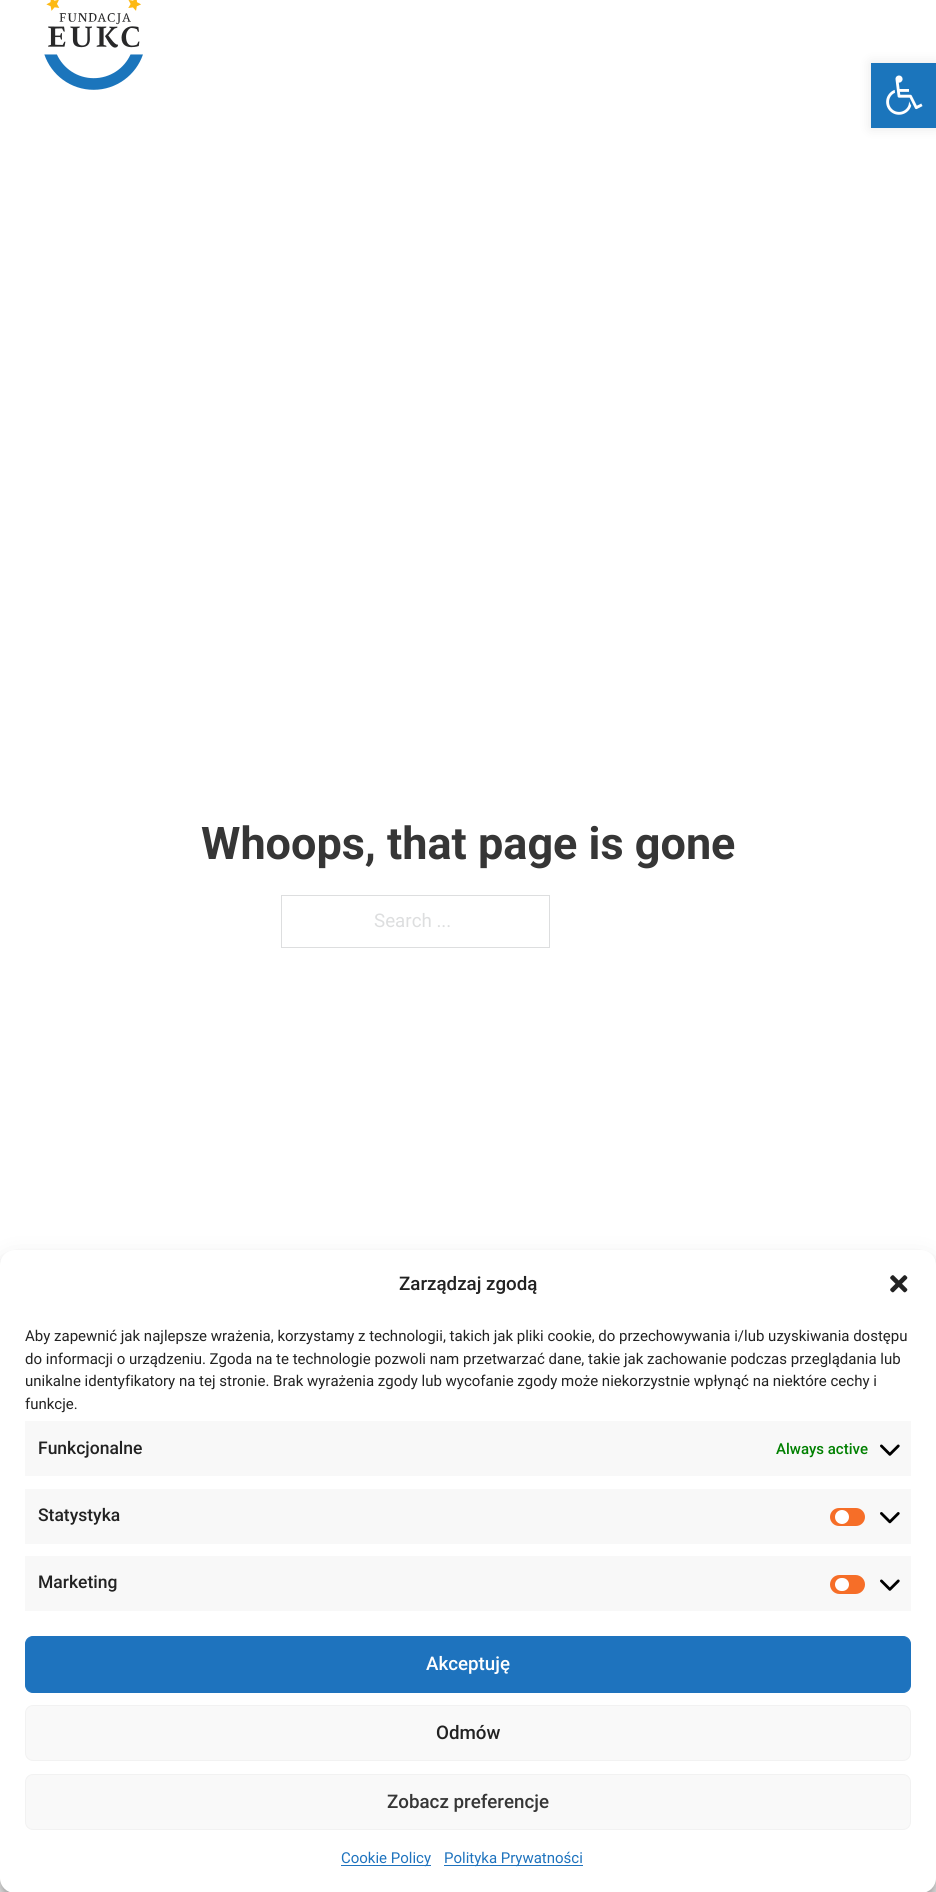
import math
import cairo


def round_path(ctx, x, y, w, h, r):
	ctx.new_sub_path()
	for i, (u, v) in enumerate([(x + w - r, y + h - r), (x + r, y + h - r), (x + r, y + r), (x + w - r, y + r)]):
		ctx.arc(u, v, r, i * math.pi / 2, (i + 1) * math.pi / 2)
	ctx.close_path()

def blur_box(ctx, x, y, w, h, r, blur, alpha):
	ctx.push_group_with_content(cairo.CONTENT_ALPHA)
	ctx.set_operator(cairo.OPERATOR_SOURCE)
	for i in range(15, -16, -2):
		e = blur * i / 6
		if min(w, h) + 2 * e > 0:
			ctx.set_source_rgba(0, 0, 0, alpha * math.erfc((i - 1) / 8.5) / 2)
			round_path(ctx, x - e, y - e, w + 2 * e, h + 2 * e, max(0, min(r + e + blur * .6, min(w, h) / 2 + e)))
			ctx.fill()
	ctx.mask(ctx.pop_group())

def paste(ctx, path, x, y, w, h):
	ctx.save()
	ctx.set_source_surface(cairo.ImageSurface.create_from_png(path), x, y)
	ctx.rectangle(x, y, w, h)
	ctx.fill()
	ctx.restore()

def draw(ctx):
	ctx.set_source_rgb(1, 1, 1)
	ctx.paint()
	paste(ctx, 'media/1.png', 44, 0, 99, 90)
	ctx.set_source_rgb(0, 0, 0)
	blur_box(ctx, 871, 63, 65, 65, 0, 6, 0.1)
	ctx.set_source_rgb(0.106, 0.459, 0.737)
	ctx.rectangle(871, 63, 65, 65)
	ctx.fill()
	paste(ctx, 'media/2.png', 886, 75, 37, 40)
	ctx.select_font_face('Roboto', cairo.FONT_SLANT_NORMAL, cairo.FONT_WEIGHT_BOLD)
	ctx.set_font_size(45)
	ctx.set_source_rgb(0.212, 0.212, 0.212)
	ctx.move_to(201, 859)
	ctx.show_text('Whoops, that page is gone')
	ctx.rectangle(281.5, 895.5, 268, 52)
	ctx.set_source_rgb(0.867, 0.871, 0.875)
	ctx.set_line_width(1)
	ctx.stroke()
	ctx.select_font_face('Roboto')
	ctx.set_font_size(18.75)
	ctx.move_to(374, 927)
	ctx.show_text('Search ...')
	ctx.set_source_rgb(0.961, 0.961, 0.961)
	ctx.rectangle(0, 1878, 936, 14)
	ctx.fill()
	ctx.set_source_rgb(0, 0, 0)
	blur_box(ctx, 0, 1258, 936, 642, 15, 4, 0.23)
	blur_box(ctx, 0, 1263, 936, 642, 15, 12.5, 0.19)
	ctx.set_source_rgb(1, 1, 1)
	round_path(ctx, 0, 1250, 936, 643, 15)
	ctx.fill()
	ctx.select_font_face('Roboto Medium')
	ctx.set_source_rgb(0.133, 0.133, 0.133)
	ctx.move_to(399, 1290)
	ctx.show_text('Zarządzaj zgodą')
	paste(ctx, 'media/3.png', 890, 1275, 18, 18)
	ctx.select_font_face('Roboto')
	ctx.set_font_size(15)
	for x, y, s in [
		(25, 1341, 'Aby zapewnić jak najlepsze wrażenia, korzystamy z technologii, takich jak pliki cookie, do przechowywania i/lub uzyskiwania dostępu'),
		(25, 1364, 'do informacji o urządzeniu. Zgoda na te technologie pozwoli nam przetwarzać dane, takie jak zachowanie podczas przeglądania lub'),
		(25, 1386, 'unikalne identyfikatory na tej stronie. Brak wyrażenia zgody lub wycofanie zgody może niekorzystnie wpłynąć na niektóre cechy i'),
		(25, 1409, 'funkcje.'),
	]:
		ctx.move_to(x, y)
		ctx.show_text(s)
	ctx.set_source_rgb(0.969, 0.969, 0.969)
	ctx.rectangle(25, 1421, 886, 55)
	ctx.fill()
	ctx.select_font_face('Roboto Medium')
	ctx.set_font_size(17.5)
	ctx.set_source_rgb(0.133, 0.133, 0.133)
	ctx.move_to(38, 1454)
	ctx.show_text('Funkcjonalne')
	ctx.set_font_size(15)
	ctx.set_source_rgb(0, 0.502, 0)
	ctx.move_to(776, 1454)
	ctx.show_text('Always active')
	paste(ctx, 'media/4.png', 880, 1444, 20, 12)
	ctx.set_source_rgb(0.969, 0.969, 0.969)
	ctx.rectangle(25, 1489, 886, 55)
	ctx.fill()
	ctx.set_font_size(17.5)
	ctx.set_source_rgb(0.133, 0.133, 0.133)
	ctx.move_to(38, 1521)
	ctx.show_text('Statystyka')
	ctx.set_source_rgb(0.961, 0.431, 0.157)
	round_path(ctx, 830, 1508, 35, 18, 9)
	ctx.fill()
	ctx.set_source_rgb(1, 1, 1)
	ctx.arc(842, 1517, 7, 0, 2 * math.pi)
	ctx.fill()
	paste(ctx, 'media/5.png', 880, 1512, 20, 12)
	ctx.set_source_rgb(0.969, 0.969, 0.969)
	ctx.rectangle(25, 1556, 886, 55)
	ctx.fill()
	ctx.set_source_rgb(0.133, 0.133, 0.133)
	ctx.move_to(38, 1588)
	ctx.show_text('Marketing')
	ctx.set_source_rgb(0.961, 0.431, 0.157)
	round_path(ctx, 830, 1575, 35, 19, 9.5)
	ctx.fill()
	ctx.set_source_rgb(1, 1, 1)
	round_path(ctx, 835, 1578, 14, 13, 6.5)
	ctx.fill()
	paste(ctx, 'media/4.png', 880, 1579, 20, 12)
	ctx.set_source_rgb(0.118, 0.451, 0.745)
	round_path(ctx, 25.5, 1636.5, 885, 56, 7.5)
	ctx.fill_preserve()
	ctx.stroke()
	ctx.set_font_size(18.75)
	ctx.set_source_rgb(1, 1, 1)
	ctx.move_to(426, 1670)
	ctx.show_text('Akceptuję')
	ctx.set_source_rgb(0.976, 0.976, 0.976)
	round_path(ctx, 25.5, 1705.5, 885, 55, 7.5)
	ctx.fill_preserve()
	ctx.set_source_rgb(0.949, 0.949, 0.949)
	ctx.stroke()
	ctx.set_source_rgb(0.133, 0.133, 0.133)
	ctx.move_to(436, 1739)
	ctx.show_text('Odmów')
	ctx.set_source_rgb(0.976, 0.976, 0.976)
	round_path(ctx, 25.5, 1774.5, 885, 55, 7.5)
	ctx.fill_preserve()
	ctx.set_source_rgb(0.949, 0.949, 0.949)
	ctx.stroke()
	ctx.set_source_rgb(0.212, 0.212, 0.212)
	ctx.move_to(387, 1808)
	ctx.show_text('Zobacz preferencje')
	ctx.set_source_rgb(0.118, 0.451, 0.745)
	ctx.rectangle(341, 1865, 90, 1)
	ctx.fill()
	ctx.select_font_face('Roboto')
	ctx.set_font_size(15)
	ctx.move_to(341, 1863)
	ctx.show_text('Cookie Policy')
	ctx.rectangle(444, 1865, 139, 1)
	ctx.fill()
	ctx.move_to(444, 1863)
	ctx.show_text('Polityka Prywatności')


surface = cairo.ImageSurface(cairo.FORMAT_RGB24, 936, 1892)
ctx = cairo.Context(surface)
options = cairo.FontOptions()
options.set_hint_metrics(cairo.HINT_METRICS_OFF)
options.set_hint_style(cairo.HINT_STYLE_NONE)
ctx.set_font_options(options)
ctx.set_miter_limit(4)
draw(ctx)
surface.write_to_png('image.png')
